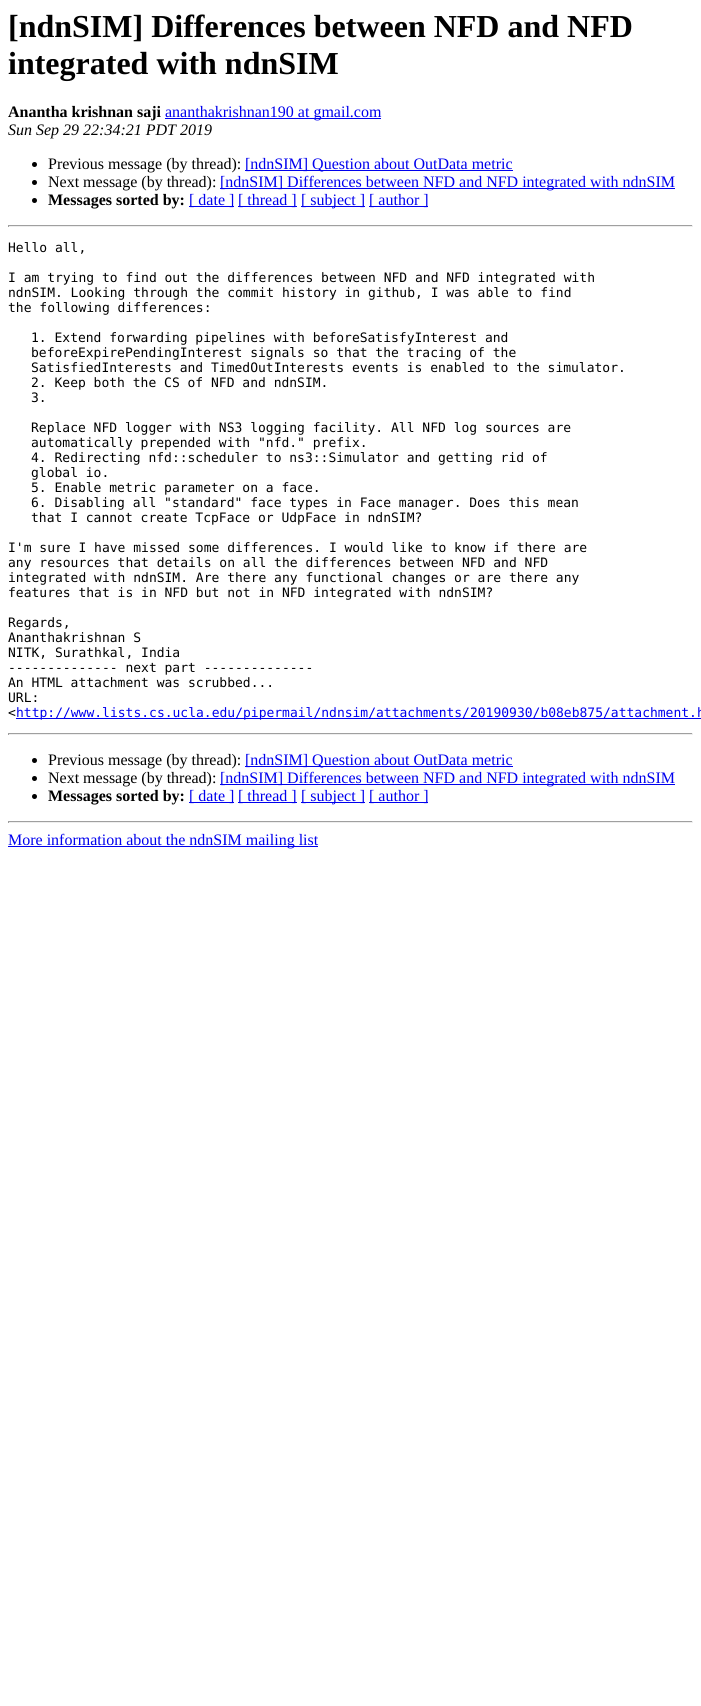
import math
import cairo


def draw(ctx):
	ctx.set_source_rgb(1, 1, 1)
	ctx.paint()
	ctx.select_font_face('Liberation Serif', cairo.FONT_SLANT_NORMAL, cairo.FONT_WEIGHT_BOLD)
	ctx.set_font_size(32)
	ctx.set_source_rgb(0, 0, 0)
	ctx.move_to(8, 37)
	ctx.show_text('[ndnSIM] Differences between NFD and NFD')
	ctx.move_to(8, 74)
	ctx.show_text('integrated with ndnSIM')
	ctx.set_font_size(16)
	ctx.move_to(8, 117)
	ctx.show_text('Anantha krishnan saji')
	ctx.set_source_rgb(0, 0, 0.933)
	ctx.rectangle(165, 118, 216, 1)
	ctx.fill()
	ctx.select_font_face('Liberation Serif')
	ctx.move_to(165, 117)
	ctx.show_text('ananthakrishnan190 at gmail.com')
	ctx.select_font_face('Liberation Serif', cairo.FONT_SLANT_ITALIC)
	ctx.set_source_rgb(0, 0, 0)
	ctx.move_to(8, 135)
	ctx.show_text('Sun Sep 29 22:34:21 PDT 2019')
	ctx.new_path()
	ctx.arc(34.5, 164.5, 2.5, 0, 2 * math.pi)
	ctx.fill()
	ctx.select_font_face('Liberation Serif')
	ctx.move_to(48, 169)
	ctx.show_text('Previous message (by thread):')
	ctx.set_source_rgb(0, 0, 0.933)
	ctx.rectangle(245, 170, 268, 1)
	ctx.fill()
	ctx.move_to(245, 169)
	ctx.show_text('[ndnSIM] Question about OutData metric')
	ctx.set_source_rgb(0, 0, 0)
	ctx.new_path()
	ctx.arc(34.5, 182.5, 2.5, 0, 2 * math.pi)
	ctx.fill()
	ctx.move_to(48, 187)
	ctx.show_text('Next message (by thread):')
	ctx.set_source_rgb(0, 0, 0.933)
	ctx.rectangle(220, 188, 455, 1)
	ctx.fill()
	ctx.move_to(220, 187)
	ctx.show_text('[ndnSIM] Differences between NFD and NFD integrated with ndnSIM')
	ctx.set_source_rgb(0, 0, 0)
	ctx.new_path()
	ctx.arc(34.5, 200.5, 2.5, 0, 2 * math.pi)
	ctx.fill()
	ctx.select_font_face('Liberation Serif', cairo.FONT_SLANT_NORMAL, cairo.FONT_WEIGHT_BOLD)
	ctx.move_to(48, 205)
	ctx.show_text('Messages sorted by:')
	ctx.set_source_rgb(0, 0, 0.933)
	ctx.rectangle(189, 206, 45, 1)
	ctx.fill()
	ctx.select_font_face('Liberation Serif')
	ctx.move_to(189, 205)
	ctx.show_text('[ date ]')
	ctx.rectangle(238, 206, 59, 1)
	ctx.fill()
	ctx.move_to(238, 205)
	ctx.show_text('[ thread ]')
	ctx.rectangle(301, 206, 64, 1)
	ctx.fill()
	ctx.move_to(301, 205)
	ctx.show_text('[ subject ]')
	ctx.rectangle(369, 206, 59, 1)
	ctx.fill()
	ctx.move_to(369, 205)
	ctx.show_text('[ author ]')
	ctx.set_source_rgb(0.624, 0.624, 0.624)
	ctx.rectangle(8, 225, 685, 1)
	ctx.fill()
	ctx.set_source_rgb(0.933, 0.933, 0.933)
	ctx.rectangle(692, 225, 1, 2)
	ctx.rectangle(8, 226, 685, 1)
	ctx.fill()
	ctx.set_source_rgb(0.624, 0.624, 0.624)
	ctx.rectangle(8, 225, 1, 2)
	ctx.fill()
	ctx.select_font_face('DejaVu Sans Mono')
	ctx.set_font_size(13)
	ctx.set_source_rgb(0, 0, 0)
	for x, y, s in [
		(8, 252, 'Hello all,'),
		(8, 282, 'I am trying to find out the differences between NFD and NFD integrated with'),
		(8, 297, 'ndnSIM. Looking through the commit history in github, I was able to find'),
		(8, 312, 'the following differences:'),
		(31, 342, '1. Extend forwarding pipelines with beforeSatisfyInterest and'),
		(31, 357, 'beforeExpirePendingInterest signals so that the tracing of the'),
		(31, 372, 'SatisfiedInterests and TimedOutInterests events is enabled to the simulator.'),
		(31, 387, '2. Keep both the CS of NFD and ndnSIM.'),
		(31, 402, '3.'),
		(31, 432, 'Replace NFD logger with NS3 logging facility. All NFD log sources are'),
		(31, 447, 'automatically prepended with "nfd." prefix.'),
		(31, 462, '4. Redirecting nfd::scheduler to ns3::Simulator and getting rid of'),
		(31, 477, 'global io.'),
		(31, 492, '5. Enable metric parameter on a face.'),
		(31, 507, '6. Disabling all "standard" face types in Face manager. Does this mean'),
		(31, 522, 'that I cannot create TcpFace or UdpFace in ndnSIM?'),
		(8, 552, 'I\'m sure I have missed some differences. I would like to know if there are'),
		(8, 567, 'any resources that details on all the differences between NFD and NFD'),
		(8, 582, 'integrated with ndnSIM. Are there any functional changes or are there any'),
		(8, 597, 'features that is in NFD but not in NFD integrated with ndnSIM?'),
		(8, 627, 'Regards,'),
		(8, 642, 'Ananthakrishnan S'),
		(8, 657, 'NITK, Surathkal, India'),
		(8, 672, '-------------- next part --------------'),
		(8, 687, 'An HTML attachment was scrubbed...'),
		(8, 702, 'URL:'),
		(8, 717, '<'),
	]:
		ctx.move_to(x, y)
		ctx.show_text(s)
	ctx.set_source_rgb(0, 0, 0.933)
	ctx.rectangle(16, 718, 685, 1)
	ctx.fill()
	ctx.move_to(16, 717)
	ctx.show_text('http://www.lists.cs.ucla.edu/pipermail/ndnsim/attachments/20190930/b08eb875/attachment.h')
	ctx.set_source_rgb(0.624, 0.624, 0.624)
	ctx.rectangle(8, 733, 685, 1)
	ctx.fill()
	ctx.set_source_rgb(0.933, 0.933, 0.933)
	ctx.rectangle(692, 733, 1, 2)
	ctx.rectangle(8, 734, 685, 1)
	ctx.fill()
	ctx.set_source_rgb(0.624, 0.624, 0.624)
	ctx.rectangle(8, 733, 1, 2)
	ctx.fill()
	ctx.set_source_rgb(0, 0, 0)
	ctx.arc(34.5, 760.5, 2.5, 0, 2 * math.pi)
	ctx.fill()
	ctx.select_font_face('Liberation Serif')
	ctx.set_font_size(16)
	ctx.move_to(48, 765)
	ctx.show_text('Previous message (by thread):')
	ctx.set_source_rgb(0, 0, 0.933)
	ctx.rectangle(245, 766, 268, 1)
	ctx.fill()
	ctx.move_to(245, 765)
	ctx.show_text('[ndnSIM] Question about OutData metric')
	ctx.set_source_rgb(0, 0, 0)
	ctx.new_path()
	ctx.arc(34.5, 778.5, 2.5, 0, 2 * math.pi)
	ctx.fill()
	ctx.move_to(48, 783)
	ctx.show_text('Next message (by thread):')
	ctx.set_source_rgb(0, 0, 0.933)
	ctx.rectangle(220, 784, 455, 1)
	ctx.fill()
	ctx.move_to(220, 783)
	ctx.show_text('[ndnSIM] Differences between NFD and NFD integrated with ndnSIM')
	ctx.set_source_rgb(0, 0, 0)
	ctx.new_path()
	ctx.arc(34.5, 796.5, 2.5, 0, 2 * math.pi)
	ctx.fill()
	ctx.select_font_face('Liberation Serif', cairo.FONT_SLANT_NORMAL, cairo.FONT_WEIGHT_BOLD)
	ctx.move_to(48, 801)
	ctx.show_text('Messages sorted by:')
	ctx.set_source_rgb(0, 0, 0.933)
	ctx.rectangle(189, 802, 45, 1)
	ctx.fill()
	ctx.select_font_face('Liberation Serif')
	ctx.move_to(189, 801)
	ctx.show_text('[ date ]')
	ctx.rectangle(238, 802, 59, 1)
	ctx.fill()
	ctx.move_to(238, 801)
	ctx.show_text('[ thread ]')
	ctx.rectangle(301, 802, 64, 1)
	ctx.fill()
	ctx.move_to(301, 801)
	ctx.show_text('[ subject ]')
	ctx.rectangle(369, 802, 59, 1)
	ctx.fill()
	ctx.move_to(369, 801)
	ctx.show_text('[ author ]')
	ctx.set_source_rgb(0.624, 0.624, 0.624)
	ctx.rectangle(8, 821, 685, 1)
	ctx.fill()
	ctx.set_source_rgb(0.933, 0.933, 0.933)
	ctx.rectangle(692, 821, 1, 2)
	ctx.rectangle(8, 822, 685, 1)
	ctx.fill()
	ctx.set_source_rgb(0.624, 0.624, 0.624)
	ctx.rectangle(8, 821, 1, 2)
	ctx.fill()
	ctx.set_source_rgb(0, 0, 0.933)
	ctx.rectangle(8, 846, 310, 1)
	ctx.fill()
	ctx.move_to(8, 845)
	ctx.show_text('More information about the ndnSIM mailing list')


surface = cairo.ImageSurface(cairo.FORMAT_RGB24, 701, 1706)
ctx = cairo.Context(surface)
options = cairo.FontOptions()
options.set_hint_metrics(cairo.HINT_METRICS_OFF)
options.set_hint_style(cairo.HINT_STYLE_NONE)
ctx.set_font_options(options)
ctx.set_miter_limit(4)
draw(ctx)
surface.write_to_png('image.png')
